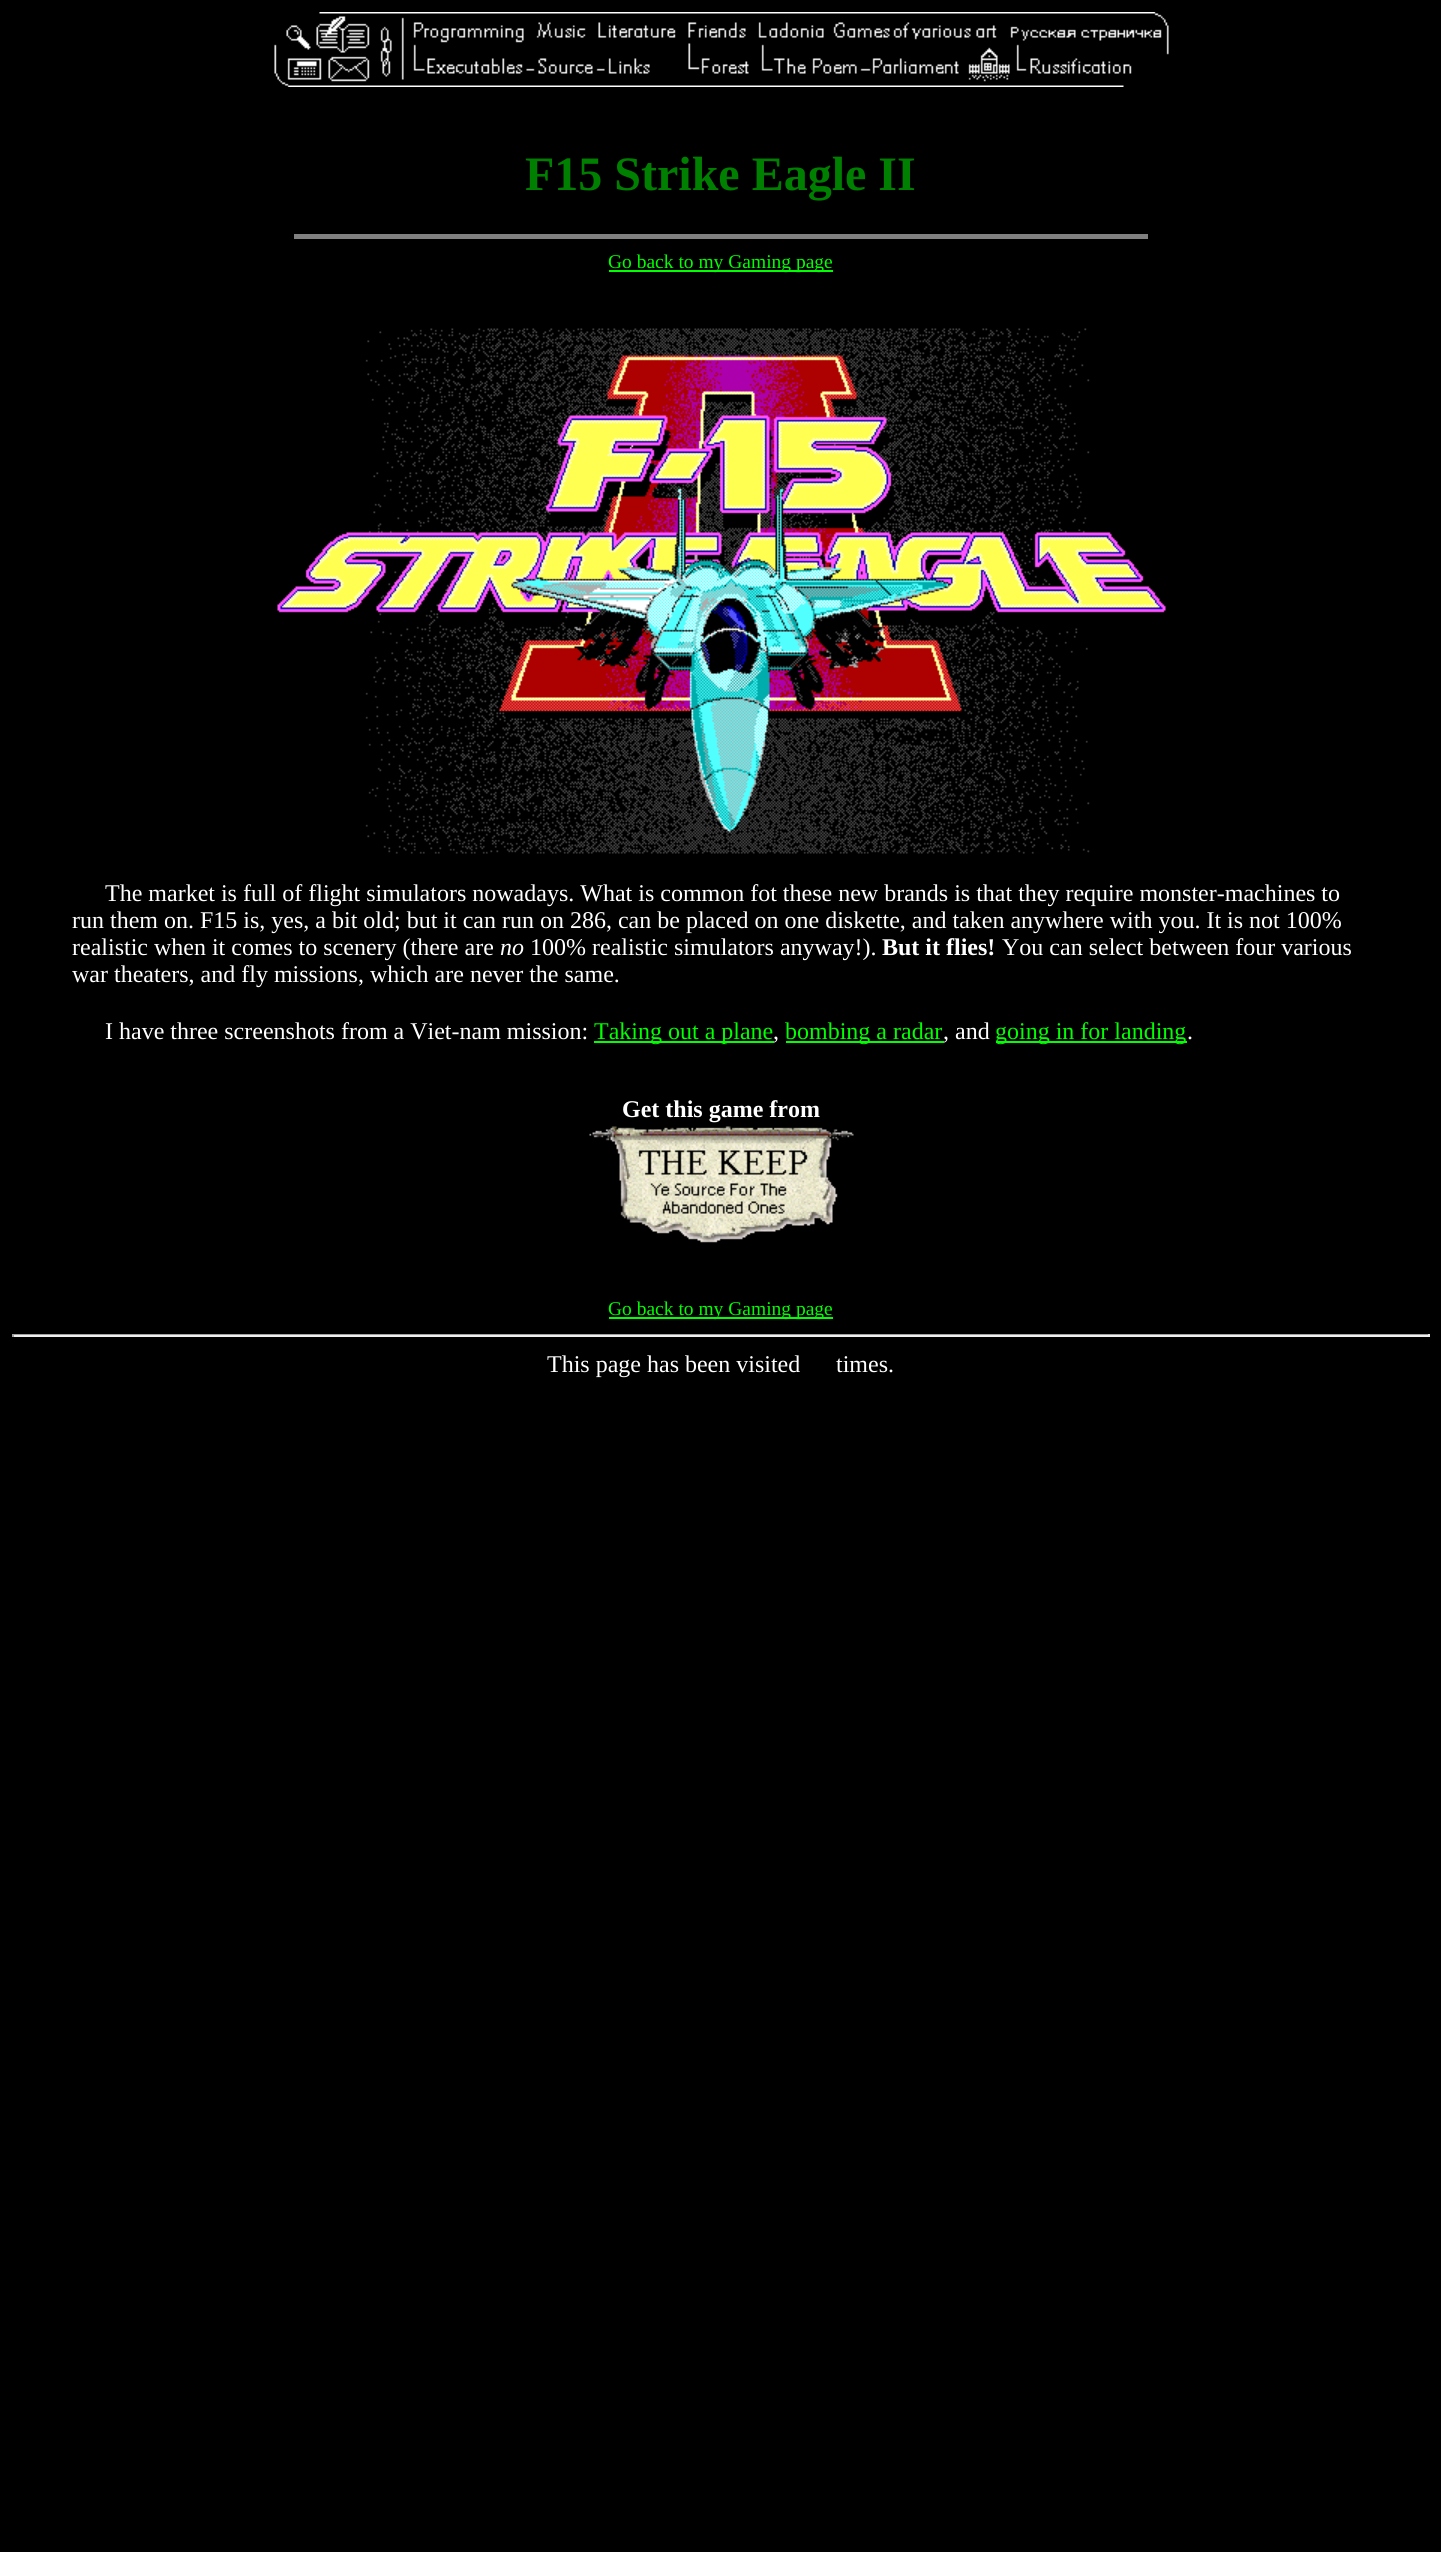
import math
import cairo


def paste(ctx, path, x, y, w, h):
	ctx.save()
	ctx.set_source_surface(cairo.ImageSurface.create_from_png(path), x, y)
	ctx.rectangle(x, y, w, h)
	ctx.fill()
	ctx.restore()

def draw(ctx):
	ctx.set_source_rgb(0, 0, 0)
	ctx.paint()
	paste(ctx, 'media/1.png', 274, 12, 895, 75)
	ctx.select_font_face('Liberation Serif', cairo.FONT_SLANT_NORMAL, cairo.FONT_WEIGHT_BOLD)
	ctx.set_font_size(48)
	ctx.set_source_rgb(0, 0.502, 0)
	ctx.move_to(525, 190)
	ctx.show_text('F15 Strike Eagle II')
	ctx.set_source_rgb(0.502, 0.502, 0.502)
	ctx.rectangle(294, 234, 854, 5)
	ctx.fill()
	ctx.set_source_rgb(0, 1, 0)
	ctx.rectangle(609, 270, 224, 2)
	ctx.fill()
	ctx.select_font_face('Liberation Serif')
	ctx.set_font_size(19.5)
	ctx.move_to(608, 268)
	ctx.show_text('Go back to my Gaming page')
	paste(ctx, 'media/2.png', 277, 328, 889, 526)
	ctx.set_font_size(24)
	ctx.set_source_rgb(1, 1, 1)
	for x, y, s in [
		(105, 901, 'The market is full of flight simulators nowadays. What is common fot these new brands is that they require monster-machines to'),
		(72, 928, 'run them on. F15 is, yes, a bit old; but it can run on 286, can be placed on one diskette, and taken anywhere with you. It is not 100%'),
		(72, 955, 'realistic when it comes to scenery (there are'),
	]:
		ctx.move_to(x, y)
		ctx.show_text(s)
	ctx.select_font_face('Liberation Serif', cairo.FONT_SLANT_ITALIC)
	ctx.move_to(500, 955)
	ctx.show_text('no')
	ctx.select_font_face('Liberation Serif')
	ctx.move_to(530, 955)
	ctx.show_text('100% realistic simulators anyway!).')
	ctx.select_font_face('Liberation Serif', cairo.FONT_SLANT_NORMAL, cairo.FONT_WEIGHT_BOLD)
	ctx.move_to(882, 955)
	ctx.show_text('But it flies!')
	ctx.select_font_face('Liberation Serif')
	for x, y, s in [
		(1002, 955, 'You can select between four various'),
		(72, 982, 'war theaters, and fly missions, which are never the same.'),
		(105, 1039, 'I have three screenshots from a Viet-nam mission:'),
	]:
		ctx.move_to(x, y)
		ctx.show_text(s)
	ctx.set_source_rgb(0, 1, 0)
	ctx.rectangle(594, 1041, 180, 2)
	ctx.fill()
	ctx.move_to(594, 1039)
	ctx.show_text('Taking out a plane')
	ctx.set_source_rgb(1, 1, 1)
	ctx.move_to(773, 1039)
	ctx.show_text(',')
	ctx.set_source_rgb(0, 1, 0)
	ctx.rectangle(786, 1041, 158, 2)
	ctx.fill()
	ctx.move_to(785, 1039)
	ctx.show_text('bombing a radar')
	ctx.set_source_rgb(1, 1, 1)
	ctx.move_to(943, 1039)
	ctx.show_text(', and')
	ctx.set_source_rgb(0, 1, 0)
	ctx.rectangle(996, 1041, 191, 2)
	ctx.fill()
	ctx.move_to(995, 1039)
	ctx.show_text('going in for landing')
	ctx.set_source_rgb(1, 1, 1)
	ctx.move_to(1187, 1039)
	ctx.show_text('.')
	ctx.select_font_face('Liberation Serif', cairo.FONT_SLANT_NORMAL, cairo.FONT_WEIGHT_BOLD)
	ctx.move_to(622, 1117)
	ctx.show_text('Get this game from')
	paste(ctx, 'media/3.png', 589, 1126, 265, 117)
	ctx.set_source_rgb(0, 1, 0)
	ctx.rectangle(609, 1317, 224, 2)
	ctx.fill()
	ctx.select_font_face('Liberation Serif')
	ctx.set_font_size(19.5)
	ctx.move_to(608, 1315)
	ctx.show_text('Go back to my Gaming page')
	ctx.set_source_rgb(0.624, 0.624, 0.624)
	ctx.rectangle(12, 1334, 1418, 1)
	ctx.fill()
	ctx.set_source_rgb(0.933, 0.933, 0.933)
	ctx.rectangle(1428, 1334, 2, 3)
	ctx.rectangle(12, 1335, 1418, 2)
	ctx.fill()
	ctx.set_source_rgb(0.624, 0.624, 0.624)
	ctx.rectangle(12, 1334, 2, 3)
	ctx.fill()
	ctx.set_font_size(24)
	ctx.set_source_rgb(1, 1, 1)
	ctx.move_to(547, 1372)
	ctx.show_text('This page has been visited')
	ctx.move_to(836, 1372)
	ctx.show_text('times.')


surface = cairo.ImageSurface(cairo.FORMAT_RGB24, 1441, 2552)
ctx = cairo.Context(surface)
options = cairo.FontOptions()
options.set_hint_metrics(cairo.HINT_METRICS_OFF)
options.set_hint_style(cairo.HINT_STYLE_NONE)
ctx.set_font_options(options)
ctx.set_miter_limit(4)
draw(ctx)
surface.write_to_png('image.png')
